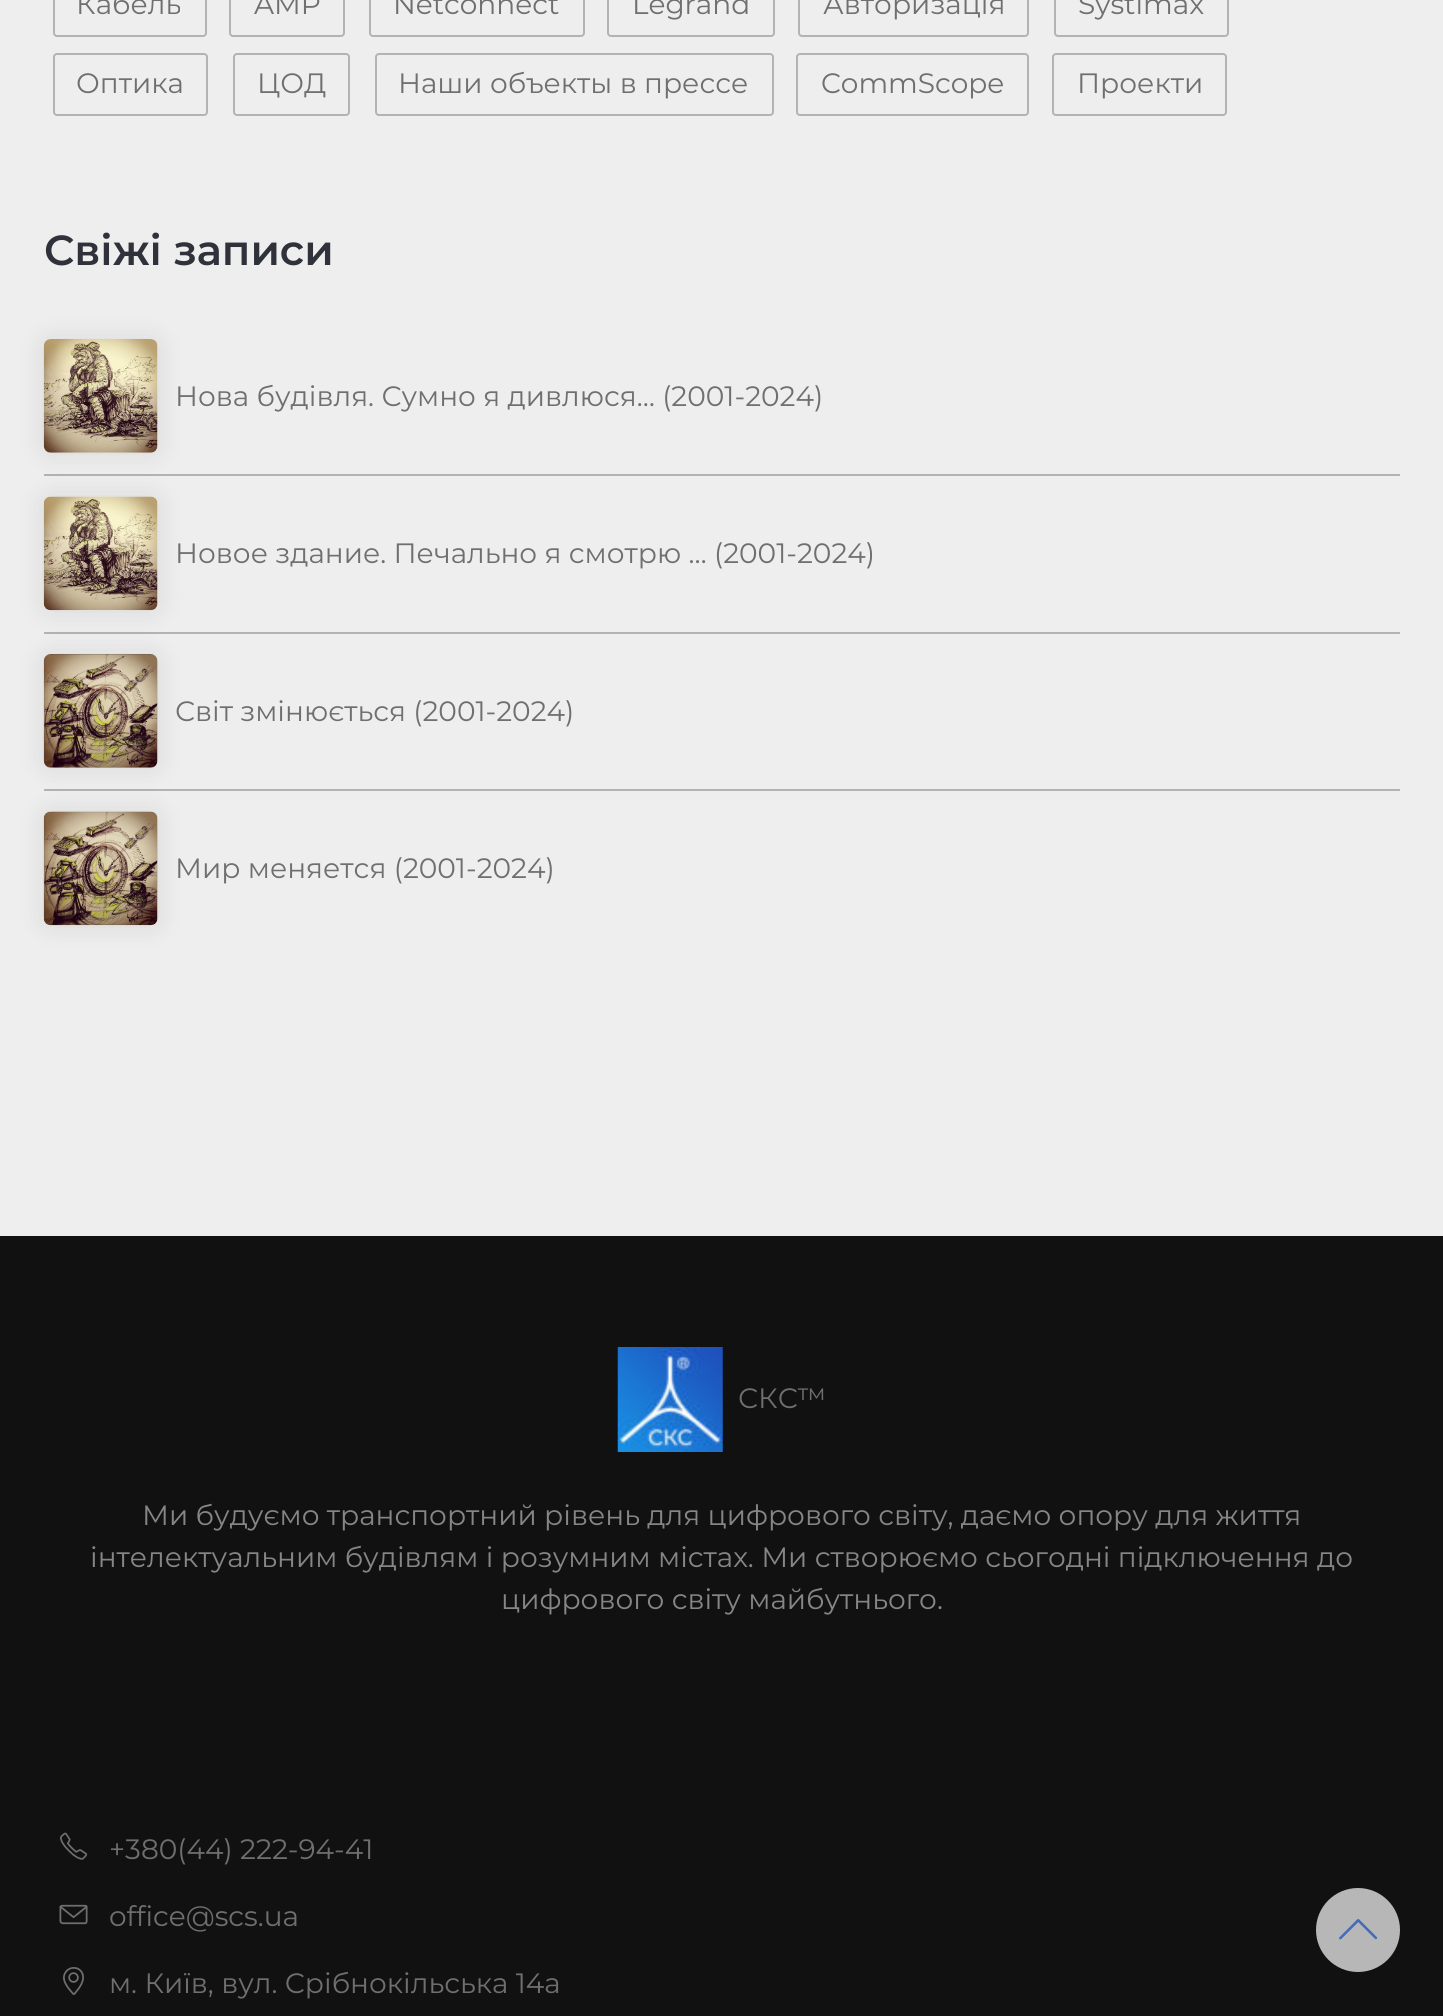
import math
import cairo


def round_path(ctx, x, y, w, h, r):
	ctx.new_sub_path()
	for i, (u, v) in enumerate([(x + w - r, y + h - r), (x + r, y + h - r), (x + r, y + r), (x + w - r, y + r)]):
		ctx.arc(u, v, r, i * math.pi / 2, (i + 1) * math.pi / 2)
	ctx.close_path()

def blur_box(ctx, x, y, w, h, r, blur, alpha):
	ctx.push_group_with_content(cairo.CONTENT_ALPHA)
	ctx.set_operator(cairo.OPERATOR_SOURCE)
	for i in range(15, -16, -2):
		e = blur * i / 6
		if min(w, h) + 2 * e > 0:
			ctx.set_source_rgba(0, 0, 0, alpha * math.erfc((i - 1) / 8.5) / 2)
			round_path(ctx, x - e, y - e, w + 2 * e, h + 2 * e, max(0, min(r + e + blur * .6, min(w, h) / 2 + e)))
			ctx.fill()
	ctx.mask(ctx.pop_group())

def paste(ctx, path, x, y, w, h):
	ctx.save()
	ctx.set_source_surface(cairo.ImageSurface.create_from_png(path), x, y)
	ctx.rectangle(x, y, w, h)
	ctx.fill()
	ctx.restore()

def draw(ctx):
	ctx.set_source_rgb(0.933, 0.933, 0.933)
	ctx.paint()
	round_path(ctx, 54, -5, 152, 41, 3)
	ctx.set_source_rgb(0.702, 0.702, 0.702)
	ctx.stroke()
	ctx.select_font_face('Montserrat')
	ctx.set_font_size(28)
	ctx.set_source_rgb(0.435, 0.435, 0.435)
	ctx.move_to(76, 14)
	ctx.show_text('Кабель')
	round_path(ctx, 230, -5, 114, 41, 3)
	ctx.set_source_rgb(0.702, 0.702, 0.702)
	ctx.stroke()
	ctx.set_source_rgb(0.435, 0.435, 0.435)
	ctx.move_to(254, 14)
	ctx.show_text('AMP')
	round_path(ctx, 370, -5, 214, 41, 3)
	ctx.set_source_rgb(0.702, 0.702, 0.702)
	ctx.stroke()
	ctx.set_source_rgb(0.435, 0.435, 0.435)
	ctx.move_to(393, 14)
	ctx.show_text('Netconnect')
	round_path(ctx, 608, -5, 166, 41, 3)
	ctx.set_source_rgb(0.702, 0.702, 0.702)
	ctx.stroke()
	ctx.set_source_rgb(0.435, 0.435, 0.435)
	ctx.move_to(632, 14)
	ctx.show_text('Legrand')
	round_path(ctx, 799, -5, 229, 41, 3)
	ctx.set_source_rgb(0.702, 0.702, 0.702)
	ctx.stroke()
	ctx.set_source_rgb(0.435, 0.435, 0.435)
	ctx.move_to(823, 14)
	ctx.show_text('Авторизація')
	round_path(ctx, 1055, -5, 173, 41, 3)
	ctx.set_source_rgb(0.702, 0.702, 0.702)
	ctx.stroke()
	ctx.set_source_rgb(0.435, 0.435, 0.435)
	ctx.move_to(1078, 14)
	ctx.show_text('Systimax')
	round_path(ctx, 54, 54, 153, 61, 3)
	ctx.set_source_rgb(0.702, 0.702, 0.702)
	ctx.stroke()
	ctx.set_source_rgb(0.435, 0.435, 0.435)
	ctx.move_to(76, 93)
	ctx.show_text('Оптика')
	round_path(ctx, 234, 54, 115, 61, 3)
	ctx.set_source_rgb(0.702, 0.702, 0.702)
	ctx.stroke()
	ctx.set_source_rgb(0.435, 0.435, 0.435)
	ctx.move_to(257, 93)
	ctx.show_text('ЦОД')
	round_path(ctx, 376, 54, 397, 61, 3)
	ctx.set_source_rgb(0.702, 0.702, 0.702)
	ctx.stroke()
	ctx.set_source_rgb(0.435, 0.435, 0.435)
	ctx.move_to(398, 93)
	ctx.show_text('Наши объекты в прессе')
	round_path(ctx, 797, 54, 231, 61, 3)
	ctx.set_source_rgb(0.702, 0.702, 0.702)
	ctx.stroke()
	ctx.set_source_rgb(0.435, 0.435, 0.435)
	ctx.move_to(821, 93)
	ctx.show_text('CommScope')
	round_path(ctx, 1053, 54, 173, 61, 3)
	ctx.set_source_rgb(0.702, 0.702, 0.702)
	ctx.stroke()
	ctx.set_source_rgb(0.435, 0.435, 0.435)
	ctx.move_to(1077, 93)
	ctx.show_text('Проекти')
	ctx.select_font_face('Montserrat SemiBold')
	ctx.set_font_size(42)
	ctx.set_source_rgb(0.184, 0.196, 0.227)
	ctx.move_to(44, 265)
	ctx.show_text('Свіжі записи')
	ctx.set_source_rgb(0.702, 0.702, 0.702)
	ctx.rectangle(44, 474, 1356, 2)
	ctx.fill()
	ctx.set_source_rgb(0, 0, 0)
	blur_box(ctx, 44, 340, 114, 113, 7, 13, 0.1)
	ctx.set_source_rgb(0.898, 0.898, 0.898)
	round_path(ctx, 44, 340, 114, 113, 7)
	ctx.fill()
	paste(ctx, 'media/1.png', 43, 339, 115, 114)
	ctx.select_font_face('Montserrat')
	ctx.set_font_size(28)
	ctx.set_source_rgb(0.435, 0.435, 0.435)
	ctx.move_to(175, 406)
	ctx.show_text('Нова будівля. Сумно я дивлюся… (2001-2024)')
	ctx.set_source_rgb(0.702, 0.702, 0.702)
	ctx.rectangle(44, 632, 1356, 2)
	ctx.fill()
	ctx.set_source_rgb(0, 0, 0)
	blur_box(ctx, 44, 497, 114, 114, 7, 13, 0.1)
	ctx.set_source_rgb(0.898, 0.898, 0.898)
	round_path(ctx, 44, 497, 114, 114, 7)
	ctx.fill()
	paste(ctx, 'media/2.png', 43, 496, 115, 115)
	ctx.set_source_rgb(0.435, 0.435, 0.435)
	ctx.move_to(175, 563)
	ctx.show_text('Новое здание. Печально я смотрю … (2001-2024)')
	ctx.set_source_rgb(0.702, 0.702, 0.702)
	ctx.rectangle(44, 789, 1356, 2)
	ctx.fill()
	ctx.set_source_rgb(0, 0, 0)
	blur_box(ctx, 44, 655, 114, 113, 7, 13, 0.1)
	ctx.set_source_rgb(0.898, 0.898, 0.898)
	round_path(ctx, 44, 655, 114, 113, 7)
	ctx.fill()
	paste(ctx, 'media/3.png', 43, 654, 115, 114)
	ctx.set_source_rgb(0.435, 0.435, 0.435)
	ctx.move_to(175, 721)
	ctx.show_text('Світ змінюється (2001-2024)')
	ctx.set_source_rgb(0, 0, 0)
	blur_box(ctx, 44, 812, 114, 114, 7, 13, 0.1)
	ctx.set_source_rgb(0.898, 0.898, 0.898)
	round_path(ctx, 44, 812, 114, 114, 7)
	ctx.fill()
	paste(ctx, 'media/4.png', 43, 811, 115, 115)
	ctx.set_source_rgb(0.435, 0.435, 0.435)
	ctx.move_to(175, 878)
	ctx.show_text('Мир меняется (2001-2024)')
	ctx.set_source_rgb(0.067, 0.067, 0.067)
	ctx.rectangle(0, 1236, 1443, 780)
	ctx.fill()
	paste(ctx, 'media/5.png', 617, 1347, 106, 105)
	ctx.set_source_rgb(0.435, 0.435, 0.435)
	ctx.move_to(738, 1408)
	ctx.show_text('СКС™')
	ctx.set_source_rgb(0.525, 0.525, 0.525)
	for x, y, s in [
		(142, 1525, 'Ми будуємо транспортний рівень для цифрового світу, даємо опору для життя'),
		(90, 1567, 'інтелектуальним будівлям і розумним містах. Ми створюємо сьогодні підключення до'),
		(501, 1609, 'цифрового світу майбутнього.'),
	]:
		ctx.move_to(x, y)
		ctx.show_text(s)
	paste(ctx, 'media/6.png', 60, 1832, 28, 28)
	ctx.set_source_rgb(0.435, 0.435, 0.435)
	ctx.move_to(109, 1859)
	ctx.show_text('+380(44) 222-94-41')
	paste(ctx, 'media/7.png', 59, 1904, 29, 21)
	ctx.move_to(109, 1926)
	ctx.show_text('office@scs.ua')
	paste(ctx, 'media/8.png', 63, 1967, 21, 28)
	ctx.move_to(109, 1993)
	ctx.show_text('м. Київ, вул. Срібнокільська 14а')
	ctx.set_source_rgb(0.718, 0.718, 0.718)
	ctx.new_path()
	ctx.arc(1358, 1930, 42, 0, 2 * math.pi)
	ctx.fill()
	paste(ctx, 'media/9.png', 1339, 1919, 39, 21)


surface = cairo.ImageSurface(cairo.FORMAT_RGB24, 1443, 2016)
ctx = cairo.Context(surface)
options = cairo.FontOptions()
options.set_hint_metrics(cairo.HINT_METRICS_OFF)
options.set_hint_style(cairo.HINT_STYLE_NONE)
ctx.set_font_options(options)
ctx.set_miter_limit(4)
draw(ctx)
surface.write_to_png('image.png')
